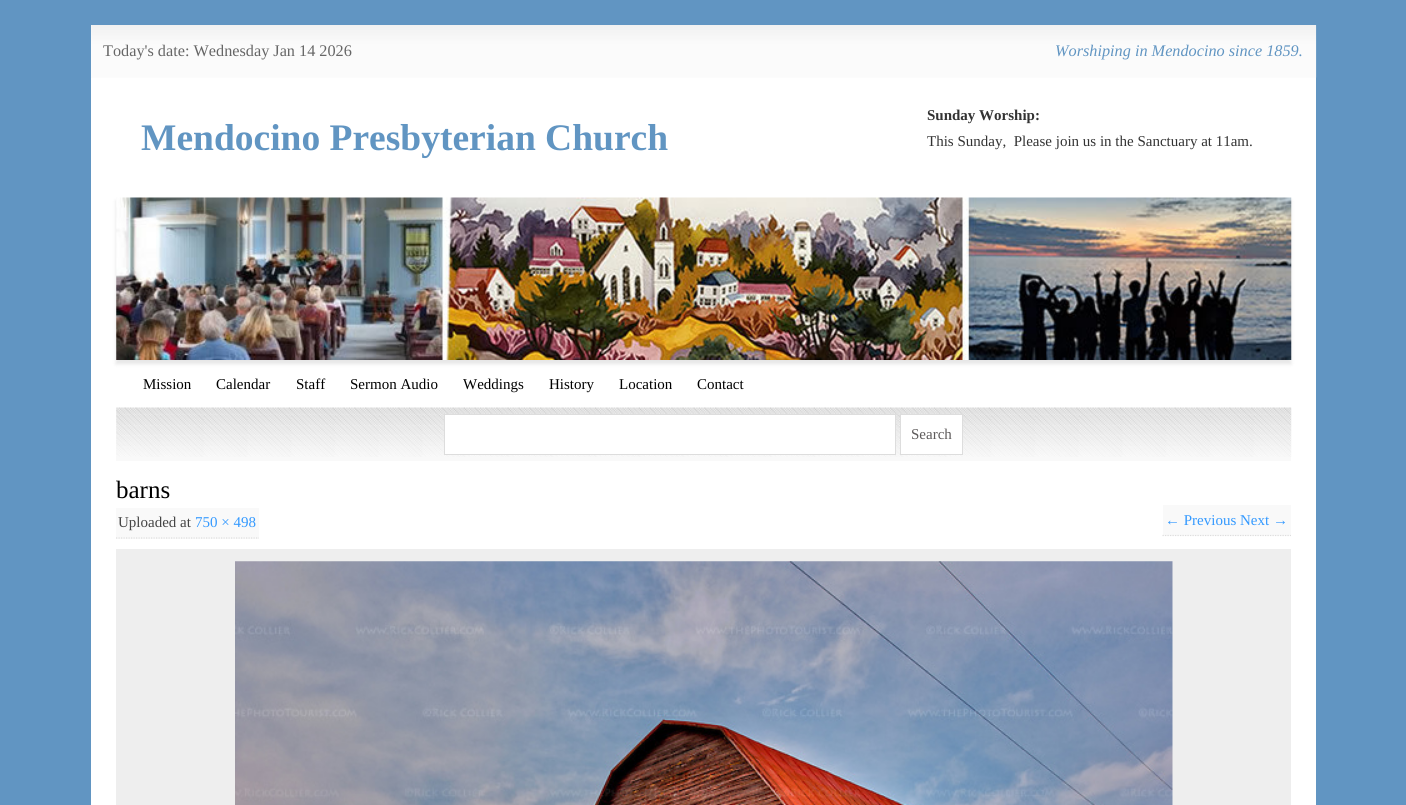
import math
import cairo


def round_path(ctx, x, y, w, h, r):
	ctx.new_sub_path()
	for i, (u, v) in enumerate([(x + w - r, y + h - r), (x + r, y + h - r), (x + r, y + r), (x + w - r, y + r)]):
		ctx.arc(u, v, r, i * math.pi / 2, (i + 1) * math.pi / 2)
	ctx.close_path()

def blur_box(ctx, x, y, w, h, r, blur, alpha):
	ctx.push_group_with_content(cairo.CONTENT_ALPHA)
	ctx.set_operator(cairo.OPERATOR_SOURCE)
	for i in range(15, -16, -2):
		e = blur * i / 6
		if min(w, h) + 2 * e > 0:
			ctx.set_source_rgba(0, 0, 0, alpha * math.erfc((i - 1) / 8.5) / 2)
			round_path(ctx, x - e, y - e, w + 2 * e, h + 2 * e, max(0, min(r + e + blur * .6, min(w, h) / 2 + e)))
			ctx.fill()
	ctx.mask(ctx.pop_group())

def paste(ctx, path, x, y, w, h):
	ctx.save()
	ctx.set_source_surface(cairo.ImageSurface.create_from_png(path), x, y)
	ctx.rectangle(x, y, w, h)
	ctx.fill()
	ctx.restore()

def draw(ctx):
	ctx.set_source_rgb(0.38, 0.584, 0.761)
	ctx.paint()
	ctx.set_source_rgb(0.988, 0.988, 0.988)
	ctx.rectangle(91, 25, 1225, 53)
	ctx.fill()
	paste(ctx, 'media/1.png', 91, 25, 1226, 53)
	ctx.select_font_face('Liberation Serif')
	ctx.set_font_size(16.25)
	ctx.set_source_rgb(0.4, 0.4, 0.4)
	ctx.move_to(103, 56)
	ctx.show_text('Today\'s date: Wednesday Jan 14 2026')
	ctx.select_font_face('Liberation Serif', cairo.FONT_SLANT_ITALIC)
	ctx.set_source_rgb(0.38, 0.584, 0.761)
	ctx.move_to(1055, 56)
	ctx.show_text('Worshiping in Mendocino since 1859.')
	ctx.set_source_rgb(1, 1, 1)
	ctx.rectangle(91, 78, 1225, 727)
	ctx.fill()
	ctx.select_font_face('Liberation Serif', cairo.FONT_SLANT_NORMAL, cairo.FONT_WEIGHT_BOLD)
	ctx.set_font_size(37.5)
	ctx.set_source_rgb(0.38, 0.584, 0.761)
	ctx.move_to(141, 150)
	ctx.show_text('Mendocino Presbyterian Church')
	ctx.set_font_size(15)
	ctx.set_source_rgb(0.2, 0.2, 0.2)
	ctx.move_to(927, 120)
	ctx.show_text('Sunday Worship:')
	ctx.select_font_face('Liberation Serif')
	ctx.move_to(927, 146)
	ctx.show_text('This Sunday,  Please join us in the Sanctuary at 11am.')
	ctx.set_source_rgb(0, 0, 0)
	blur_box(ctx, 116, 201, 1175, 163, 0, 2, 0.1)
	paste(ctx, 'media/2.png', 116, 197, 1176, 163)
	ctx.set_source_rgb(0, 0, 0)
	for x, y, s in [
		(143, 389, 'Mission'),
		(216, 389, 'Calendar'),
		(296, 389, 'Staff'),
		(350, 389, 'Sermon Audio'),
		(463, 389, 'Weddings'),
		(549, 389, 'History'),
		(619, 389, 'Location'),
		(697, 389, 'Contact'),
	]:
		ctx.move_to(x, y)
		ctx.show_text(s)
	ctx.set_source_rgb(0.976, 0.976, 0.976)
	ctx.rectangle(116, 408, 1175, 53)
	ctx.fill()
	paste(ctx, 'media/3.png', 116, 407, 1176, 50)
	ctx.set_source_rgb(1, 1, 1)
	ctx.rectangle(444.5, 414.5, 451, 40)
	ctx.fill_preserve()
	ctx.set_source_rgb(0.867, 0.867, 0.867)
	ctx.set_line_width(1)
	ctx.stroke()
	ctx.set_source_rgb(1, 1, 1)
	ctx.rectangle(900.5, 414.5, 62, 40)
	ctx.fill_preserve()
	ctx.set_source_rgb(0.867, 0.867, 0.867)
	ctx.stroke()
	ctx.set_source_rgb(0.365, 0.353, 0.353)
	ctx.move_to(911, 439)
	ctx.show_text('Search')
	ctx.set_font_size(25)
	ctx.set_source_rgb(0, 0, 0)
	ctx.move_to(116, 498)
	ctx.show_text('barns')
	ctx.set_source_rgb(0.976, 0.976, 0.976)
	ctx.rectangle(116, 508, 143, 31)
	ctx.fill()
	ctx.new_path()
	ctx.move_to(116, 538)
	ctx.line_to(259, 538)
	ctx.set_source_rgb(0.867, 0.867, 0.867)
	ctx.set_line_width(1.2)
	ctx.set_dash([1.25, 1.25])
	ctx.stroke()
	ctx.set_font_size(15)
	ctx.set_source_rgb(0.267, 0.267, 0.267)
	ctx.move_to(118, 527)
	ctx.show_text('Uploaded at')
	ctx.set_source_rgb(0.2, 0.6, 1)
	ctx.move_to(195, 527)
	ctx.show_text('750 × 498')
	ctx.set_source_rgb(0.976, 0.976, 0.976)
	ctx.rectangle(1163, 505, 128, 31)
	ctx.fill()
	ctx.new_path()
	ctx.move_to(1162.5, 535.5)
	ctx.line_to(1291, 535.5)
	ctx.set_source_rgb(0.867, 0.867, 0.867)
	ctx.stroke()
	ctx.set_source_rgb(0.2, 0.6, 1)
	ctx.move_to(1165, 525)
	ctx.show_text('← Previous Next →')
	ctx.set_source_rgb(0.933, 0.933, 0.933)
	ctx.rectangle(116, 549, 1175, 256)
	ctx.fill()
	paste(ctx, 'media/4.png', 235, 561, 938, 244)


surface = cairo.ImageSurface(cairo.FORMAT_RGB24, 1406, 805)
ctx = cairo.Context(surface)
options = cairo.FontOptions()
options.set_hint_metrics(cairo.HINT_METRICS_OFF)
options.set_hint_style(cairo.HINT_STYLE_NONE)
ctx.set_font_options(options)
ctx.set_miter_limit(4)
draw(ctx)
surface.write_to_png('image.png')
